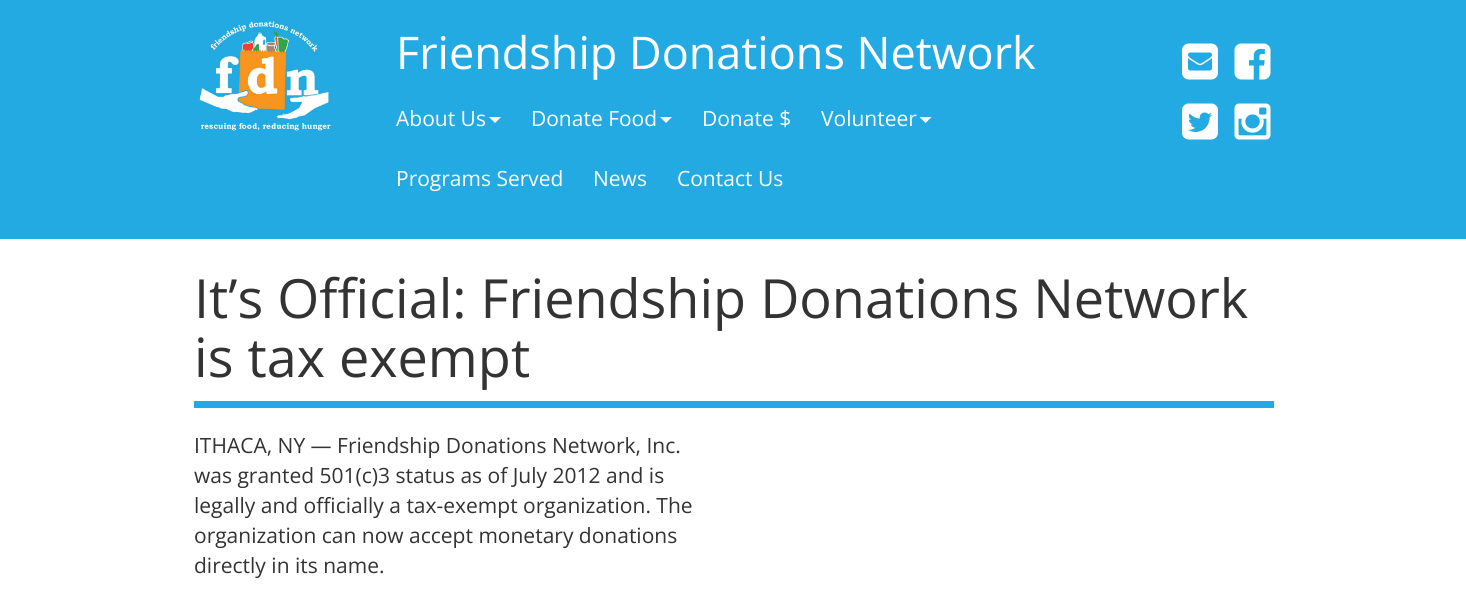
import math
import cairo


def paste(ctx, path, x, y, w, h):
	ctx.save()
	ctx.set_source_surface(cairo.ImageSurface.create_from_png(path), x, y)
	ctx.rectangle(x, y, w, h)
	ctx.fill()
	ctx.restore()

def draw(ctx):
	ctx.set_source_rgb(1, 1, 1)
	ctx.paint()
	ctx.set_source_rgb(0.137, 0.667, 0.886)
	ctx.rectangle(0, 0, 1466, 239)
	ctx.fill()
	paste(ctx, 'media/1.png', 199, 20, 132, 111)
	ctx.select_font_face('Open Sans')
	ctx.set_font_size(45)
	ctx.set_source_rgb(1, 1, 1)
	ctx.move_to(396, 69)
	ctx.show_text('Friendship Donations Network')
	ctx.set_font_size(21)
	ctx.move_to(396, 126)
	ctx.show_text('About Us')
	ctx.new_path()
	ctx.move_to(489, 117)
	ctx.line_to(501, 117)
	ctx.line_to(495, 123)
	ctx.close_path()
	ctx.fill()
	ctx.move_to(531, 126)
	ctx.show_text('Donate Food')
	ctx.new_path()
	ctx.move_to(660, 117)
	ctx.line_to(672, 117)
	ctx.line_to(666, 123)
	ctx.close_path()
	ctx.fill()
	ctx.move_to(702, 126)
	ctx.show_text('Donate $')
	ctx.move_to(821, 126)
	ctx.show_text('Volunteer')
	ctx.new_path()
	ctx.move_to(919.5, 117)
	ctx.line_to(931.5, 117)
	ctx.line_to(925.5, 123)
	ctx.close_path()
	ctx.fill()
	for x, y, s in [
		(396, 186, 'Programs Served'),
		(593, 186, 'News'),
		(677, 186, 'Contact Us'),
	]:
		ctx.move_to(x, y)
		ctx.show_text(s)
	paste(ctx, 'media/2.png', 1182, 43, 36, 37)
	paste(ctx, 'media/3.png', 1234, 43, 37, 37)
	paste(ctx, 'media/4.png', 1182, 103, 36, 37)
	paste(ctx, 'media/5.png', 1234, 103, 37, 37)
	ctx.set_source_rgb(0.137, 0.667, 0.886)
	ctx.rectangle(194, 401, 1080, 7)
	ctx.fill()
	ctx.set_font_size(54)
	ctx.set_source_rgb(0.2, 0.2, 0.2)
	ctx.move_to(194, 318)
	ctx.show_text('It’s Official: Friendship Donations Network')
	ctx.move_to(194, 377)
	ctx.show_text('is tax exempt')
	ctx.set_font_size(21)
	for x, y, s in [
		(194, 453, 'ITHACA, NY — Friendship Donations Network, Inc.'),
		(194, 483, 'was granted 501(c)3 status as of July 2012 and is'),
		(194, 513, 'legally and officially a tax-exempt organization. The'),
		(194, 543, 'organization can now accept monetary donations'),
		(194, 573, 'directly in its name.'),
	]:
		ctx.move_to(x, y)
		ctx.show_text(s)


surface = cairo.ImageSurface(cairo.FORMAT_RGB24, 1466, 590)
ctx = cairo.Context(surface)
options = cairo.FontOptions()
options.set_hint_metrics(cairo.HINT_METRICS_OFF)
options.set_hint_style(cairo.HINT_STYLE_NONE)
ctx.set_font_options(options)
ctx.set_miter_limit(4)
draw(ctx)
surface.write_to_png('image.png')
